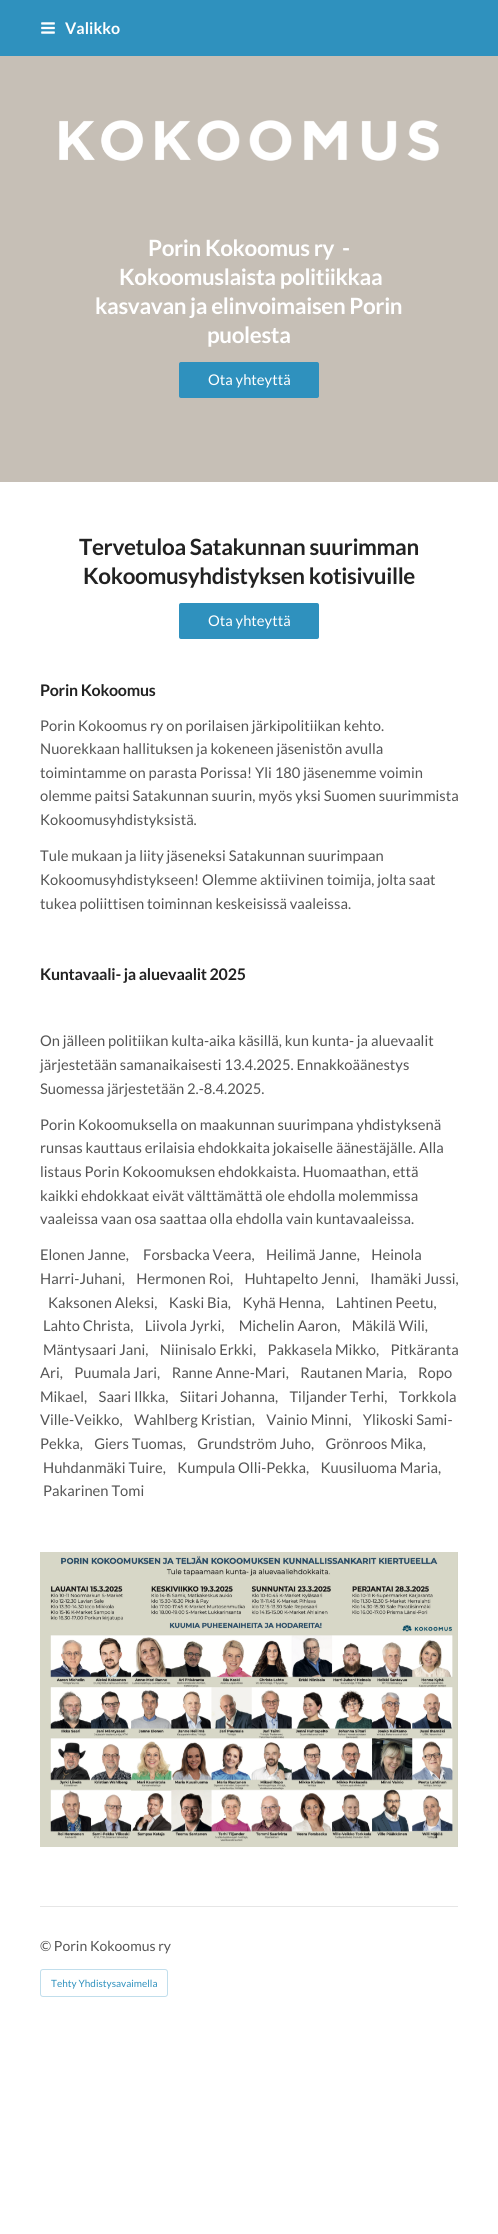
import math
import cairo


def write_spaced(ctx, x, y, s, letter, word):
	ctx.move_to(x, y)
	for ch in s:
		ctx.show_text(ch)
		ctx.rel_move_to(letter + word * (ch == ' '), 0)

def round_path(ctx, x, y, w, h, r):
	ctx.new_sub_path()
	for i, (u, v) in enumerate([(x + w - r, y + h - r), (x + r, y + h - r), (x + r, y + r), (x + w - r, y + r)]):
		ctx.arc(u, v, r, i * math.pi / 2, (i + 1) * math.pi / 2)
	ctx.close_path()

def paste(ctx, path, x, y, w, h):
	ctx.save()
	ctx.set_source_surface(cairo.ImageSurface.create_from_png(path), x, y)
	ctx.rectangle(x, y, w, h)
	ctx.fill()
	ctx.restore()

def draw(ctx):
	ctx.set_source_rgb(1, 1, 1)
	ctx.paint()
	ctx.set_source_rgb(0.184, 0.569, 0.745)
	ctx.rectangle(0, 0, 498, 56)
	ctx.fill()
	paste(ctx, 'media/1.png', 41, 22, 14, 12)
	ctx.select_font_face('Lato', cairo.FONT_SLANT_NORMAL, cairo.FONT_WEIGHT_BOLD)
	ctx.set_font_size(16)
	ctx.set_source_rgb(1, 1, 1)
	ctx.move_to(65, 34)
	ctx.show_text('Valikko')
	ctx.set_source_rgb(0.776, 0.749, 0.714)
	ctx.rectangle(0, 56, 498, 426)
	ctx.fill()
	paste(ctx, 'media/2.png', 59, 120, 380, 41)
	ctx.set_font_size(22.4)
	ctx.set_source_rgb(1, 1, 1)
	for x, y, s in [
		(148, 256, 'Porin Kokoomus ry  -'),
		(119, 285, 'Kokoomuslaista politiikkaa'),
		(95, 314, 'kasvavan ja elinvoimaisen Porin'),
		(207, 343, 'puolesta'),
	]:
		write_spaced(ctx, x, y, s, -0.35, 0)
	ctx.set_source_rgb(0.184, 0.569, 0.745)
	round_path(ctx, 179, 362, 140, 36, 2)
	ctx.fill()
	ctx.select_font_face('Lato')
	ctx.set_font_size(14.75)
	ctx.set_source_rgb(1, 1, 1)
	ctx.move_to(208, 385)
	ctx.show_text('Ota yhteyttä')
	ctx.select_font_face('Lato', cairo.FONT_SLANT_NORMAL, cairo.FONT_WEIGHT_BOLD)
	ctx.set_font_size(22.4)
	ctx.set_source_rgb(0.133, 0.133, 0.133)
	write_spaced(ctx, 79, 555, 'Tervetuloa Satakunnan suurimman', -0.35, 0)
	write_spaced(ctx, 83, 584, 'Kokoomusyhdistyksen kotisivuille', -0.35, 0)
	ctx.set_source_rgb(0.184, 0.569, 0.745)
	round_path(ctx, 179, 603, 140, 36, 2)
	ctx.fill()
	ctx.select_font_face('Lato')
	ctx.set_font_size(14.75)
	ctx.set_source_rgb(1, 1, 1)
	ctx.move_to(208, 626)
	ctx.show_text('Ota yhteyttä')
	ctx.select_font_face('Lato', cairo.FONT_SLANT_NORMAL, cairo.FONT_WEIGHT_BOLD)
	ctx.set_font_size(16)
	ctx.set_source_rgb(0.133, 0.133, 0.133)
	write_spaced(ctx, 40, 696, 'Porin Kokoomus', -0.25, 0)
	ctx.select_font_face('Lato')
	ctx.set_font_size(14.75)
	ctx.set_source_rgb(0.333, 0.333, 0.333)
	for x, y, s in [
		(40, 731, 'Porin Kokoomus ry on porilaisen järkipolitiikan kehto.'),
		(40, 754, 'Nuorekkaan hallituksen ja kokeneen jäsenistön avulla'),
		(40, 778, 'toimintamme on parasta Porissa! Yli 180 jäsenemme voimin'),
		(40, 801, 'olemme paitsi Satakunnan suurin, myös yksi Suomen suurimmista'),
		(40, 825, 'Kokoomusyhdistyksistä.'),
		(40, 861, 'Tule mukaan ja liity jäseneksi Satakunnan suurimpaan'),
		(40, 885, 'Kokoomusyhdistykseen! Olemme aktiivinen toimija, jolta saat'),
		(40, 909, 'tukea poliittisen toiminnan keskeisissä vaaleissa.'),
	]:
		ctx.move_to(x, y)
		ctx.show_text(s)
	ctx.select_font_face('Lato', cairo.FONT_SLANT_NORMAL, cairo.FONT_WEIGHT_BOLD)
	ctx.set_font_size(16)
	ctx.set_source_rgb(0.133, 0.133, 0.133)
	write_spaced(ctx, 40, 980, 'Kuntavaali- ja aluevaalit 2025', -0.25, 0)
	ctx.select_font_face('Lato')
	ctx.set_font_size(14.75)
	ctx.set_source_rgb(0.333, 0.333, 0.333)
	for x, y, s in [
		(40, 1046, 'On jälleen politiikan kulta-aika käsillä, kun kunta- ja aluevaalit'),
		(40, 1070, 'järjestetään samanaikaisesti 13.4.2025. Ennakkoäänestys'),
		(40, 1094, 'Suomessa järjestetään 2.-8.4.2025.'),
		(40, 1130, 'Porin Kokoomuksella on maakunnan suurimpana yhdistyksenä'),
		(40, 1153, 'runsas kauttaus erilaisia ehdokkaita jokaiselle äänestäjälle. Alla'),
		(40, 1177, 'listaus Porin Kokoomuksen ehdokkaista. Huomaathan, että'),
		(40, 1201, 'kaikki ehdokkaat eivät välttämättä ole ehdolla molemmissa'),
		(40, 1224, 'vaaleissa vaan osa saattaa olla ehdolla vain kuntavaaleissa.'),
		(40, 1260, 'Elonen Janne,     Forsbacka Veera,    Heilimä Janne,    Heinola'),
		(40, 1284, 'Harri-Juhani,    Hermonen Roi,    Huhtapelto Jenni,    Ihamäki Jussi,'),
		(48, 1308, 'Kaksonen Aleksi,    Kaski Bia,    Kyhä Henna,    Lahtinen Peetu,'),
		(43, 1331, 'Lahto Christa,    Liivola Jyrki,     Michelin Aaron,    Mäkilä Wili,'),
		(43, 1355, 'Mäntysaari Jani,    Niinisalo Erkki,    Pakkasela Mikko,    Pitkäranta'),
		(40, 1378, 'Ari,    Puumala Jari,    Ranne Anne-Mari,    Rautanen Maria,    Ropo'),
		(40, 1402, 'Mikael,    Saari Ilkka,    Siitari Johanna,    Tiljander Terhi,    Torkkola'),
		(40, 1425, 'Ville-Veikko,    Wahlberg Kristian,    Vainio Minni,    Ylikoski Sami-'),
		(40, 1449, 'Pekka,    Giers Tuomas,    Grundström Juho,    Grönroos Mika,'),
		(43, 1473, 'Huhdanmäki Tuire,    Kumpula Olli-Pekka,    Kuusiluoma Maria,'),
		(43, 1496, 'Pakarinen Tomi'),
	]:
		ctx.move_to(x, y)
		ctx.show_text(s)
	paste(ctx, 'media/3.png', 40, 1552, 418, 295)
	ctx.set_source_rgb(0.902, 0.902, 0.902)
	ctx.rectangle(40, 1906, 418, 1)
	ctx.fill()
	ctx.set_font_size(14)
	ctx.set_source_rgb(0.333, 0.333, 0.333)
	ctx.move_to(40, 1951)
	ctx.show_text('© Porin Kokoomus ry')
	round_path(ctx, 40.5, 1969.5, 127, 27, 2.5)
	ctx.set_source_rgb(0.757, 0.871, 0.925)
	ctx.set_line_width(1)
	ctx.stroke()
	ctx.set_font_size(10)
	ctx.set_source_rgb(0.184, 0.569, 0.745)
	ctx.move_to(51, 1987)
	ctx.show_text('Tehty Yhdistysavaimella')


surface = cairo.ImageSurface(cairo.FORMAT_RGB24, 498, 2234)
ctx = cairo.Context(surface)
options = cairo.FontOptions()
options.set_hint_metrics(cairo.HINT_METRICS_OFF)
options.set_hint_style(cairo.HINT_STYLE_NONE)
ctx.set_font_options(options)
ctx.set_miter_limit(4)
draw(ctx)
surface.write_to_png('image.png')
